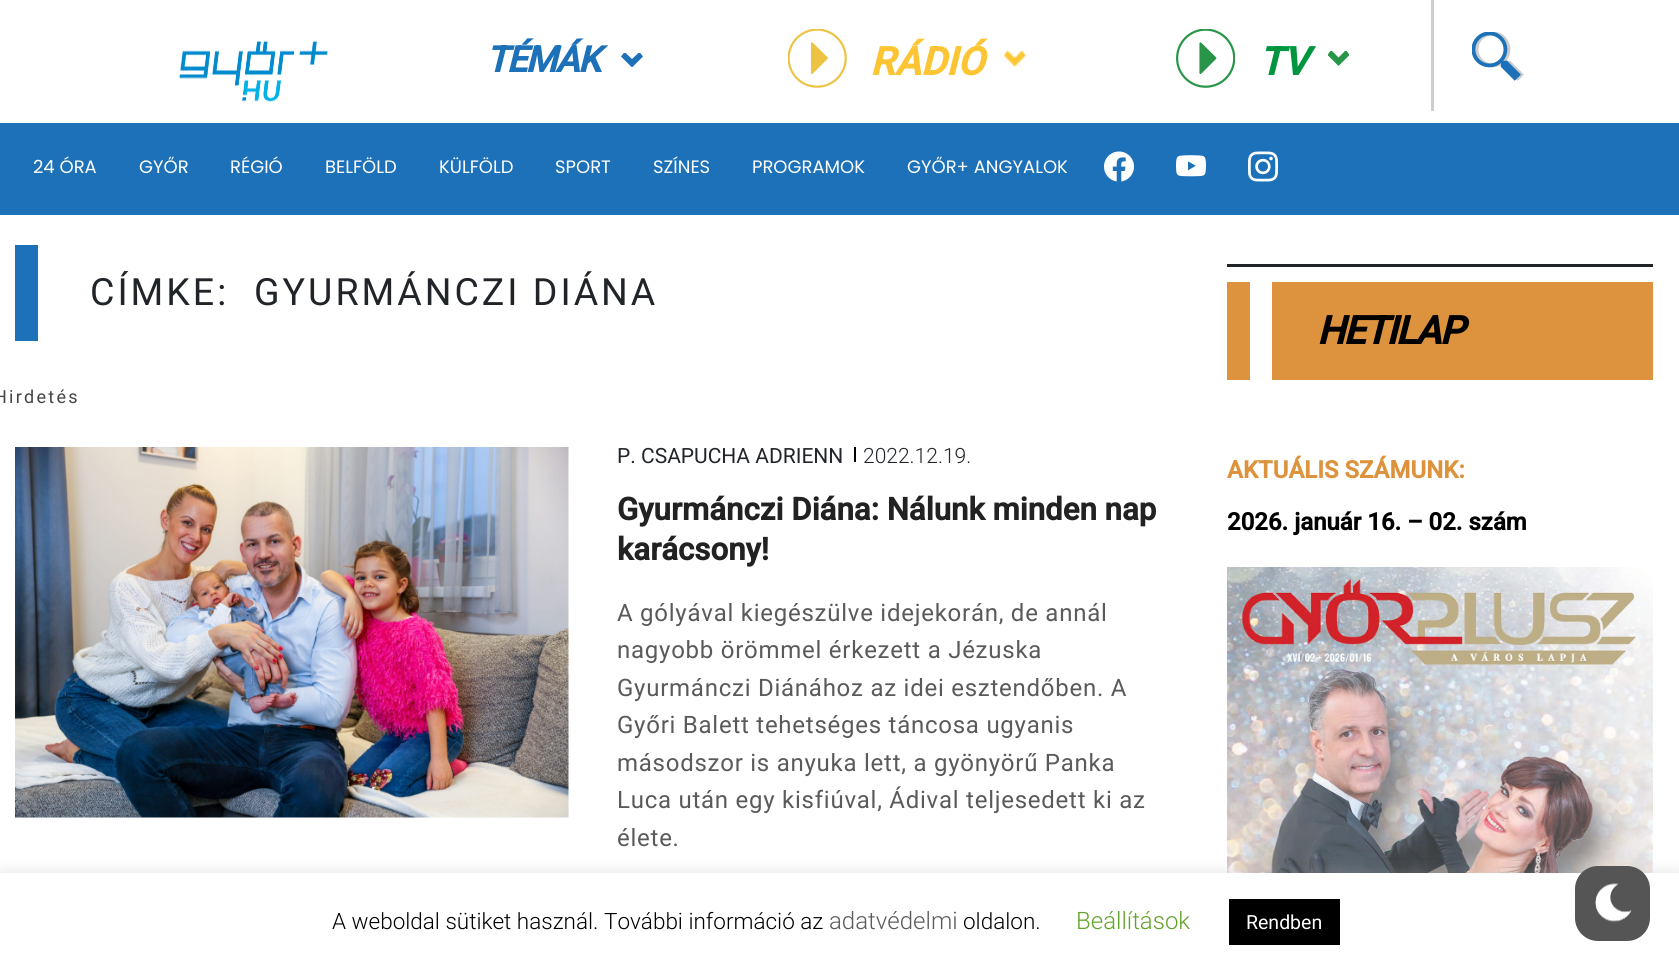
import math
import cairo


def write_spaced(ctx, x, y, s, letter, word):
	ctx.move_to(x, y)
	for ch in s:
		ctx.show_text(ch)
		ctx.rel_move_to(letter + word * (ch == ' '), 0)

def round_path(ctx, x, y, w, h, r):
	ctx.new_sub_path()
	for i, (u, v) in enumerate([(x + w - r, y + h - r), (x + r, y + h - r), (x + r, y + r), (x + w - r, y + r)]):
		ctx.arc(u, v, r, i * math.pi / 2, (i + 1) * math.pi / 2)
	ctx.close_path()

def blur_box(ctx, x, y, w, h, r, blur, alpha):
	ctx.push_group_with_content(cairo.CONTENT_ALPHA)
	ctx.set_operator(cairo.OPERATOR_SOURCE)
	for i in range(15, -16, -2):
		e = blur * i / 6
		if min(w, h) + 2 * e > 0:
			ctx.set_source_rgba(0, 0, 0, alpha * math.erfc((i - 1) / 8.5) / 2)
			round_path(ctx, x - e, y - e, w + 2 * e, h + 2 * e, max(0, min(r + e + blur * .6, min(w, h) / 2 + e)))
			ctx.fill()
	ctx.mask(ctx.pop_group())

def paste(ctx, path, x, y, w, h):
	ctx.save()
	ctx.set_source_surface(cairo.ImageSurface.create_from_png(path), x, y)
	ctx.rectangle(x, y, w, h)
	ctx.fill()
	ctx.restore()

def draw(ctx):
	ctx.set_source_rgb(1, 1, 1)
	ctx.paint()
	paste(ctx, 'media/1.png', 179, 40, 149, 62)
	ctx.select_font_face('Roboto', cairo.FONT_SLANT_ITALIC, cairo.FONT_WEIGHT_BOLD)
	ctx.set_font_size(36)
	ctx.set_source_rgb(0.114, 0.443, 0.722)
	write_spaced(ctx, 486, 72, 'TÉMÁK', -1.5, 0)
	ctx.save()
	ctx.rectangle(621, 53, 22, 14)
	ctx.clip()
	ctx.new_path()
	ctx.move_to(632.5, 67)
	ctx.line_to(643, 56.5)
	ctx.line_to(639.5, 52)
	ctx.line_to(632, 59)
	ctx.line_to(624.5, 52)
	ctx.line_to(621, 56.5)
	ctx.line_to(632, 67.5)
	ctx.close_path()
	ctx.fill()
	ctx.restore()
	paste(ctx, 'media/2.png', 788, 29, 59, 59)
	ctx.set_font_size(39)
	ctx.set_source_rgb(0.992, 0.773, 0.2)
	ctx.move_to(870, 75)
	ctx.show_text('RÁDIÓ')
	paste(ctx, 'media/3.png', 1004, 50, 22, 17)
	paste(ctx, 'media/4.png', 1176, 29, 59, 59)
	ctx.set_source_rgb(0, 0.588, 0.251)
	ctx.move_to(1259, 75)
	ctx.show_text('TV')
	ctx.save()
	ctx.rectangle(1328, 51, 21, 15)
	ctx.clip()
	ctx.set_source_rgb(0.157, 0.584, 0.282)
	ctx.new_path()
	ctx.move_to(1339, 65.5)
	ctx.line_to(1349.5, 55)
	ctx.line_to(1346, 50)
	ctx.line_to(1338.5, 57.5)
	ctx.line_to(1331, 50)
	ctx.line_to(1327.5, 55)
	ctx.line_to(1338.5, 66)
	ctx.close_path()
	ctx.fill()
	ctx.restore()
	ctx.set_source_rgb(0.808, 0.808, 0.808)
	ctx.rectangle(1431, 0, 3, 111)
	ctx.fill()
	paste(ctx, 'media/5.png', 1472, 32, 52, 49)
	ctx.set_source_rgb(0.114, 0.443, 0.722)
	ctx.rectangle(0, 123, 1679, 92)
	ctx.fill()
	ctx.select_font_face('Poppins')
	ctx.set_font_size(18)
	ctx.set_source_rgb(1, 1, 1)
	for x, y, s in [
		(33, 173, '24 ÓRA'),
		(139, 173, 'GYŐR'),
		(230, 173, 'RÉGIÓ'),
		(325, 173, 'BELFÖLD'),
		(439, 173, 'KÜLFÖLD'),
		(555, 173, 'SPORT'),
		(653, 173, 'SZÍNES'),
		(752, 173, 'PROGRAMOK'),
		(907, 173, 'GYŐR+ ANGYALOK'),
	]:
		ctx.move_to(x, y)
		ctx.show_text(s)
	paste(ctx, 'media/6.png', 1104, 151, 30, 31)
	paste(ctx, 'media/7.png', 1176, 155, 30, 22)
	paste(ctx, 'media/8.png', 1248, 151, 30, 31)
	ctx.set_source_rgb(0.114, 0.443, 0.722)
	ctx.rectangle(15, 245, 23, 96)
	ctx.fill()
	ctx.select_font_face('Roboto')
	ctx.set_font_size(37.5)
	ctx.set_source_rgb(0.129, 0.145, 0.161)
	write_spaced(ctx, 90, 305, 'CÍMKE:', 3, 0)
	write_spaced(ctx, 254, 305, 'GYURMÁNCZI DIÁNA', 3, 0)
	ctx.set_font_size(18)
	ctx.set_source_rgb(0.275, 0.275, 0.275)
	write_spaced(ctx, -6, 403, 'Hirdetés', 2.25, 0)
	paste(ctx, 'media/9.png', 15, 447, 554, 371)
	ctx.set_source_rgb(0, 0, 0)
	ctx.rectangle(854, 447, 2, 15)
	ctx.fill()
	ctx.set_font_size(21)
	ctx.set_source_rgb(0.129, 0.145, 0.161)
	ctx.move_to(617, 463)
	ctx.show_text('P. CSAPUCHA ADRIENN')
	ctx.select_font_face('Roboto Light')
	ctx.move_to(863, 463)
	ctx.show_text('2022.12.19.')
	ctx.select_font_face('Roboto', cairo.FONT_SLANT_NORMAL, cairo.FONT_WEIGHT_BOLD)
	ctx.set_font_size(31.25)
	ctx.set_source_rgb(0.133, 0.133, 0.133)
	ctx.move_to(617, 520)
	ctx.show_text('Gyurmánczi Diána: Nálunk minden nap')
	ctx.move_to(617, 560)
	ctx.show_text('karácsony!')
	ctx.select_font_face('Roboto')
	ctx.set_font_size(24)
	ctx.set_source_rgb(0.353, 0.353, 0.353)
	for x, y, s in [
		(617, 621, 'A gólyával kiegészülve idejekorán, de annál'),
		(617, 658, 'nagyobb örömmel érkezett a Jézuska'),
		(617, 696, 'Gyurmánczi Diánához az idei esztendőben. A'),
		(617, 733, 'Győri Balett tehetséges táncosa ugyanis'),
		(617, 771, 'másodszor is anyuka lett, a gyönyörű Panka'),
		(617, 808, 'Luca után egy kisfiúval, Ádival teljesedett ki az'),
		(617, 846, 'élete.'),
	]:
		write_spaced(ctx, x, y, s, 0.75, 0)
	ctx.set_source_rgb(0.129, 0.145, 0.161)
	ctx.rectangle(1227, 264, 426, 3)
	ctx.fill()
	ctx.set_source_rgb(0.867, 0.576, 0.239)
	ctx.rectangle(1227, 282, 426, 98)
	ctx.fill()
	ctx.set_source_rgb(1, 1, 1)
	ctx.rectangle(1250, 282, 22, 98)
	ctx.fill()
	ctx.select_font_face('Roboto', cairo.FONT_SLANT_ITALIC, cairo.FONT_WEIGHT_BOLD)
	ctx.set_font_size(39)
	ctx.set_source_rgb(0, 0, 0)
	write_spaced(ctx, 1317, 344, 'HETILAP', -1.5, 0)
	ctx.select_font_face('Roboto', cairo.FONT_SLANT_NORMAL, cairo.FONT_WEIGHT_BOLD)
	ctx.set_font_size(24)
	ctx.set_source_rgb(0.867, 0.576, 0.239)
	ctx.move_to(1227, 478)
	ctx.show_text('AKTUÁLIS SZÁMUNK:')
	ctx.set_source_rgb(0, 0, 0)
	ctx.move_to(1227, 530)
	ctx.show_text('2026. január 16. – 02. szám')
	paste(ctx, 'media/10.png', 1227, 567, 426, 306)
	ctx.set_source_rgb(0.675, 0.671, 0.671)
	blur_box(ctx, 0, 872, 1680, 97, 0, 7.5, 0.3)
	ctx.set_source_rgb(1, 1, 1)
	ctx.rectangle(0, 873, 1679, 97)
	ctx.fill()
	ctx.select_font_face('Roboto Light')
	ctx.set_font_size(22.5)
	ctx.set_source_rgb(0, 0, 0)
	ctx.move_to(332, 929)
	ctx.show_text('A weboldal sütiket használ. További információ az')
	ctx.set_font_size(24)
	ctx.set_source_rgb(0.353, 0.353, 0.353)
	ctx.move_to(829, 929)
	ctx.show_text('adatvédelmi')
	ctx.set_font_size(22.5)
	ctx.set_source_rgb(0, 0, 0)
	ctx.move_to(963, 929)
	ctx.show_text('oldalon.')
	ctx.set_font_size(24)
	ctx.set_source_rgb(0.384, 0.639, 0.161)
	ctx.move_to(1076, 929)
	ctx.show_text('Beállítások')
	ctx.set_source_rgb(0, 0, 0)
	ctx.rectangle(1229, 899, 111, 46)
	ctx.fill()
	ctx.select_font_face('Roboto')
	ctx.set_font_size(19.5)
	ctx.set_source_rgb(1, 1, 1)
	ctx.move_to(1246, 929)
	ctx.show_text('Rendben')
	ctx.set_source_rgb(0.333, 0.333, 0.333)
	round_path(ctx, 1575, 866, 75, 75, 23)
	ctx.fill()
	paste(ctx, 'media/11.png', 1595, 883, 37, 39)


surface = cairo.ImageSurface(cairo.FORMAT_RGB24, 1679, 970)
ctx = cairo.Context(surface)
options = cairo.FontOptions()
options.set_hint_metrics(cairo.HINT_METRICS_OFF)
options.set_hint_style(cairo.HINT_STYLE_NONE)
ctx.set_font_options(options)
ctx.set_miter_limit(4)
draw(ctx)
surface.write_to_png('image.png')
